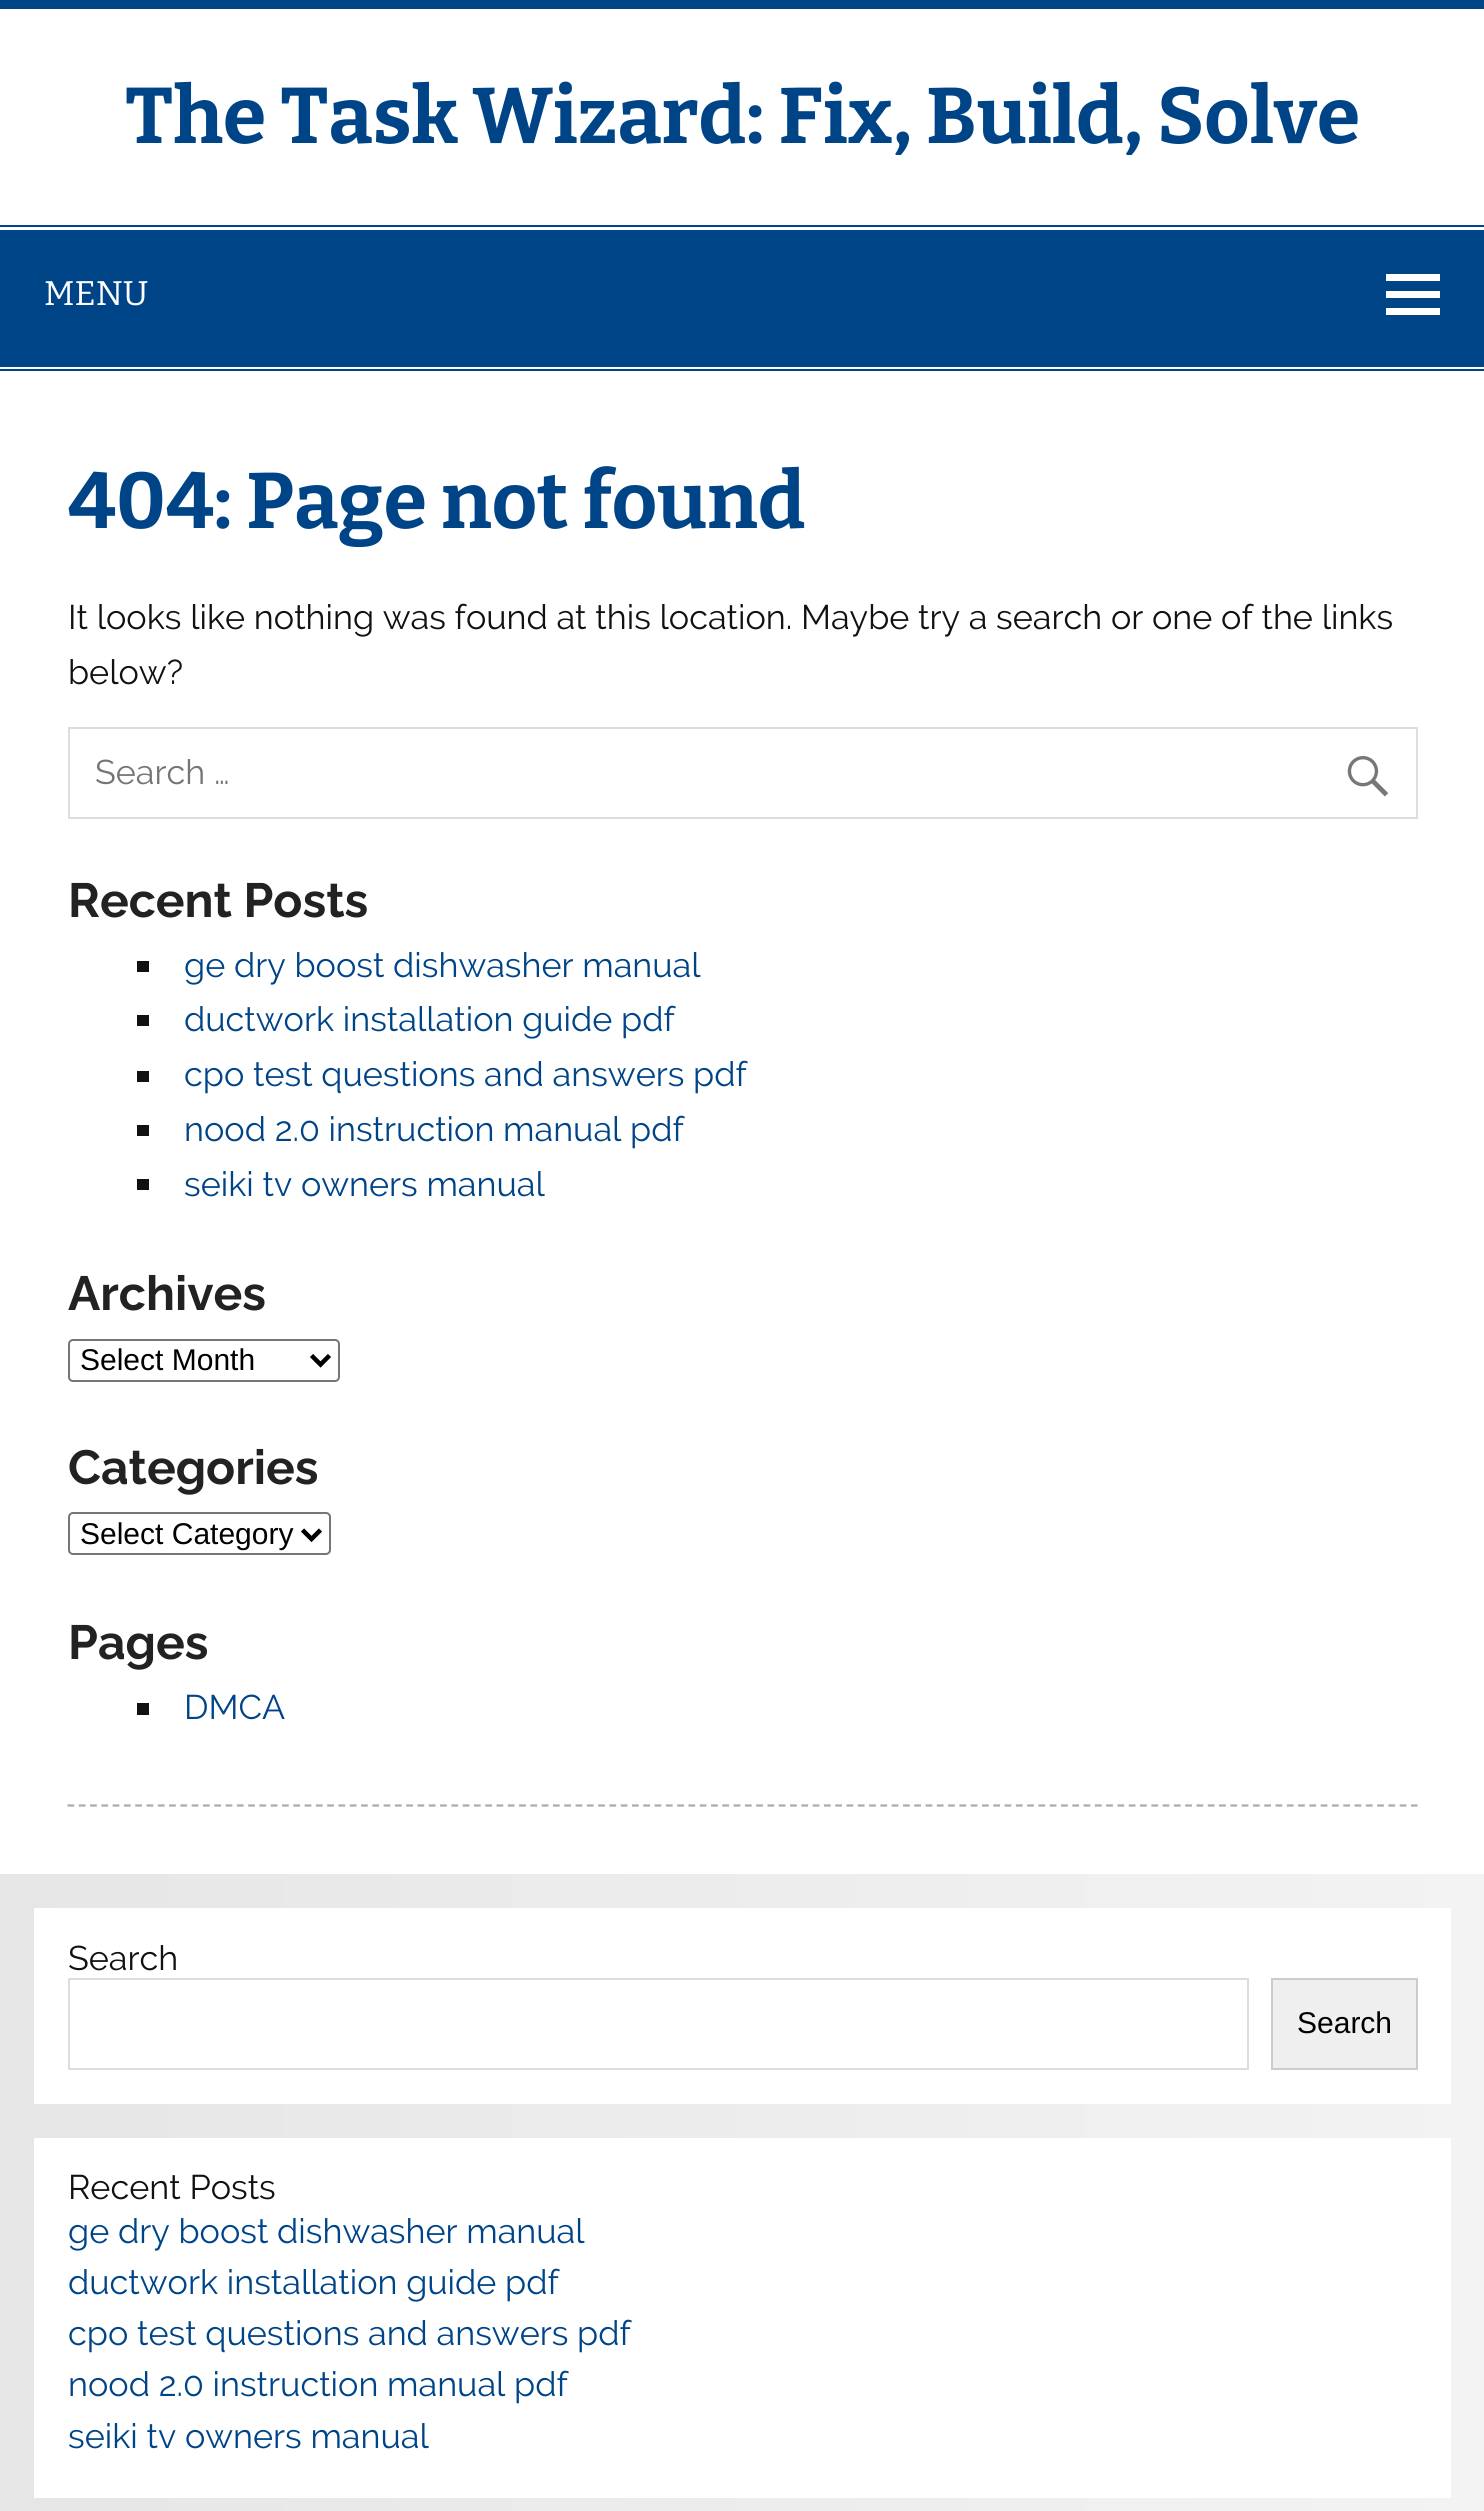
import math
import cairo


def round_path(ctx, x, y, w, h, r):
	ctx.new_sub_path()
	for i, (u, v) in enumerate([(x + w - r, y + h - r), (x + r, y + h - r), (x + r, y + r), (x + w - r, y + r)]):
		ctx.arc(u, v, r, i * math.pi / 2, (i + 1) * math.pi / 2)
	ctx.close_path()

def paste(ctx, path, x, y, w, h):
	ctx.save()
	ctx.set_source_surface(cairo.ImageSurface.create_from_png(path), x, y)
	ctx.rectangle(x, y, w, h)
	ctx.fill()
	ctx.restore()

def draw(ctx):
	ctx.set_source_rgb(1, 1, 1)
	ctx.paint()
	ctx.set_source_rgb(0, 0.267, 0.533)
	ctx.rectangle(0, 0, 1484, 9)
	ctx.fill()
	ctx.save()
	ctx.rectangle(68, 77, 1350, 78)
	ctx.clip()
	ctx.select_font_face('Bitter', cairo.FONT_SLANT_NORMAL, cairo.FONT_WEIGHT_BOLD)
	ctx.set_font_size(78.7)
	ctx.move_to(125, 143)
	ctx.show_text('The Task Wizard: Fix, Build, Solve')
	ctx.restore()
	ctx.rectangle(0, 225, 1484, 2)
	ctx.rectangle(0, 369, 1484, 2)
	ctx.rectangle(0, 230, 1484, 137)
	ctx.fill()
	ctx.select_font_face('Bitter')
	ctx.set_font_size(34.2)
	ctx.set_source_rgb(1, 1, 1)
	ctx.move_to(44, 305)
	ctx.show_text('MENU')
	ctx.new_path()
	ctx.move_to(1386, 315)
	ctx.line_to(1386, 308)
	ctx.line_to(1440, 308)
	ctx.line_to(1440, 315)
	ctx.close_path()
	ctx.move_to(1386, 274)
	ctx.line_to(1440, 274)
	ctx.line_to(1440, 281)
	ctx.line_to(1386, 281)
	ctx.close_path()
	ctx.move_to(1386, 298)
	ctx.line_to(1386, 291)
	ctx.line_to(1440, 291)
	ctx.line_to(1440, 298)
	ctx.close_path()
	ctx.fill()
	ctx.new_path()
	ctx.move_to(67.5, 1805.5)
	ctx.line_to(1417.5, 1805.5)
	ctx.set_source_rgb(0.667, 0.667, 0.667)
	ctx.set_line_width(2.2)
	ctx.set_dash([6.75, 4.54])
	ctx.stroke()
	ctx.select_font_face('Bitter', cairo.FONT_SLANT_NORMAL, cairo.FONT_WEIGHT_BOLD)
	ctx.set_font_size(78.7)
	ctx.set_source_rgb(0, 0.267, 0.533)
	ctx.move_to(68, 528)
	ctx.show_text('404: Page not found')
	ctx.select_font_face('Raleway')
	ctx.set_font_size(34.2)
	ctx.set_source_rgb(0.067, 0.067, 0.067)
	ctx.move_to(68, 629)
	ctx.show_text('It looks like nothing was found at this location. Maybe try a search or one of the links')
	ctx.move_to(68, 684)
	ctx.show_text('below?')
	ctx.rectangle(69, 728, 1348, 90)
	ctx.set_source_rgb(0.867, 0.867, 0.867)
	ctx.set_line_width(2)
	ctx.set_dash([])
	ctx.stroke()
	ctx.set_source_rgb(0.459, 0.459, 0.459)
	ctx.move_to(95, 784)
	ctx.show_text('Search …')
	paste(ctx, 'media/1.png', 1347, 756, 42, 41)
	ctx.select_font_face('Raleway', cairo.FONT_SLANT_NORMAL, cairo.FONT_WEIGHT_BOLD)
	ctx.set_font_size(48)
	ctx.set_source_rgb(0.133, 0.133, 0.133)
	ctx.move_to(68, 917)
	ctx.show_text('Recent Posts')
	ctx.set_source_rgb(0.067, 0.067, 0.067)
	ctx.rectangle(137, 961, 12, 11)
	ctx.fill()
	ctx.select_font_face('Raleway')
	ctx.set_font_size(34.2)
	ctx.set_source_rgb(0, 0.267, 0.533)
	ctx.move_to(184, 977)
	ctx.show_text('ge dry boost dishwasher manual')
	ctx.set_source_rgb(0.067, 0.067, 0.067)
	ctx.rectangle(137, 1015, 12, 11)
	ctx.fill()
	ctx.set_source_rgb(0, 0.267, 0.533)
	ctx.move_to(184, 1031)
	ctx.show_text('ductwork installation guide pdf')
	ctx.set_source_rgb(0.067, 0.067, 0.067)
	ctx.rectangle(137, 1071, 12, 11)
	ctx.fill()
	ctx.set_source_rgb(0, 0.267, 0.533)
	ctx.move_to(184, 1086)
	ctx.show_text('cpo test questions and answers pdf')
	ctx.set_source_rgb(0.067, 0.067, 0.067)
	ctx.rectangle(137, 1125, 12, 11)
	ctx.fill()
	ctx.set_source_rgb(0, 0.267, 0.533)
	ctx.move_to(184, 1141)
	ctx.show_text('nood 2.0 instruction manual pdf')
	ctx.set_source_rgb(0.067, 0.067, 0.067)
	ctx.rectangle(137, 1179, 12, 11)
	ctx.fill()
	ctx.set_source_rgb(0, 0.267, 0.533)
	ctx.move_to(184, 1196)
	ctx.show_text('seiki tv owners manual')
	ctx.select_font_face('Raleway', cairo.FONT_SLANT_NORMAL, cairo.FONT_WEIGHT_BOLD)
	ctx.set_font_size(48)
	ctx.set_source_rgb(0.133, 0.133, 0.133)
	ctx.move_to(68, 1310)
	ctx.show_text('Archives')
	round_path(ctx, 69, 1340, 270, 41, 4)
	ctx.set_source_rgb(0.463, 0.463, 0.463)
	ctx.stroke()
	ctx.new_path()
	ctx.move_to(311.5, 1355.5)
	ctx.line_to(320.5, 1364.5)
	ctx.line_to(329.5, 1355.5)
	ctx.set_source_rgb(0, 0, 0)
	ctx.set_line_width(4.5)
	ctx.stroke()
	ctx.select_font_face('Liberation Sans')
	ctx.set_font_size(30)
	ctx.move_to(80, 1370)
	ctx.show_text('Select Month')
	ctx.select_font_face('Raleway', cairo.FONT_SLANT_NORMAL, cairo.FONT_WEIGHT_BOLD)
	ctx.set_font_size(48)
	ctx.set_source_rgb(0.133, 0.133, 0.133)
	ctx.move_to(68, 1484)
	ctx.show_text('Categories')
	round_path(ctx, 69, 1513, 261, 41, 4)
	ctx.set_source_rgb(0.463, 0.463, 0.463)
	ctx.set_line_width(2)
	ctx.stroke()
	ctx.new_path()
	ctx.move_to(302.5, 1530)
	ctx.line_to(311.5, 1539)
	ctx.line_to(320.5, 1530)
	ctx.set_source_rgb(0, 0, 0)
	ctx.set_line_width(4.5)
	ctx.stroke()
	ctx.select_font_face('Liberation Sans')
	ctx.set_font_size(30)
	ctx.move_to(80, 1544)
	ctx.show_text('Select Category')
	ctx.select_font_face('Raleway', cairo.FONT_SLANT_NORMAL, cairo.FONT_WEIGHT_BOLD)
	ctx.set_font_size(48)
	ctx.set_source_rgb(0.133, 0.133, 0.133)
	ctx.move_to(68, 1659)
	ctx.show_text('Pages')
	ctx.set_source_rgb(0.067, 0.067, 0.067)
	ctx.rectangle(137, 1703, 12, 12)
	ctx.fill()
	ctx.select_font_face('Raleway')
	ctx.set_font_size(34.2)
	ctx.set_source_rgb(0, 0.267, 0.533)
	ctx.move_to(184, 1719)
	ctx.show_text('DMCA')
	gradient = cairo.LinearGradient(0, 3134, 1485, 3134)
	gradient.add_color_stop_rgba(0, 0.902, 0.902, 0.902, 1)
	gradient.add_color_stop_rgba(1, 0.953, 0.953, 0.953, 1)
	ctx.set_source(gradient)
	ctx.rectangle(0, 1874, 1484, 637)
	ctx.fill()
	ctx.set_source_rgb(1, 1, 1)
	ctx.rectangle(34, 1908, 1417, 196)
	ctx.fill()
	ctx.set_source_rgb(0.067, 0.067, 0.067)
	ctx.move_to(68, 1970)
	ctx.show_text('Search')
	ctx.rectangle(69, 1979, 1179, 90)
	ctx.set_source_rgb(0.867, 0.867, 0.867)
	ctx.set_line_width(2)
	ctx.stroke()
	ctx.set_source_rgb(0.937, 0.937, 0.937)
	ctx.rectangle(1272, 1979, 145, 90)
	ctx.fill_preserve()
	ctx.set_source_rgb(0.8, 0.8, 0.8)
	ctx.stroke()
	ctx.select_font_face('Liberation Sans')
	ctx.set_font_size(30)
	ctx.set_source_rgb(0, 0, 0)
	ctx.move_to(1297, 2033)
	ctx.show_text('Search')
	ctx.set_source_rgb(1, 1, 1)
	ctx.rectangle(34, 2138, 1417, 360)
	ctx.fill()
	ctx.select_font_face('Raleway')
	ctx.set_font_size(34.2)
	ctx.set_source_rgb(0.067, 0.067, 0.067)
	ctx.move_to(68, 2199)
	ctx.show_text('Recent Posts')
	ctx.set_source_rgb(0, 0.267, 0.533)
	for x, y, s in [
		(68, 2243, 'ge dry boost dishwasher manual'),
		(68, 2294, 'ductwork installation guide pdf'),
		(68, 2345, 'cpo test questions and answers pdf'),
		(68, 2396, 'nood 2.0 instruction manual pdf'),
		(68, 2448, 'seiki tv owners manual'),
	]:
		ctx.move_to(x, y)
		ctx.show_text(s)


surface = cairo.ImageSurface(cairo.FORMAT_RGB24, 1484, 2511)
ctx = cairo.Context(surface)
options = cairo.FontOptions()
options.set_hint_metrics(cairo.HINT_METRICS_OFF)
options.set_hint_style(cairo.HINT_STYLE_NONE)
ctx.set_font_options(options)
ctx.set_miter_limit(4)
draw(ctx)
surface.write_to_png('image.png')
